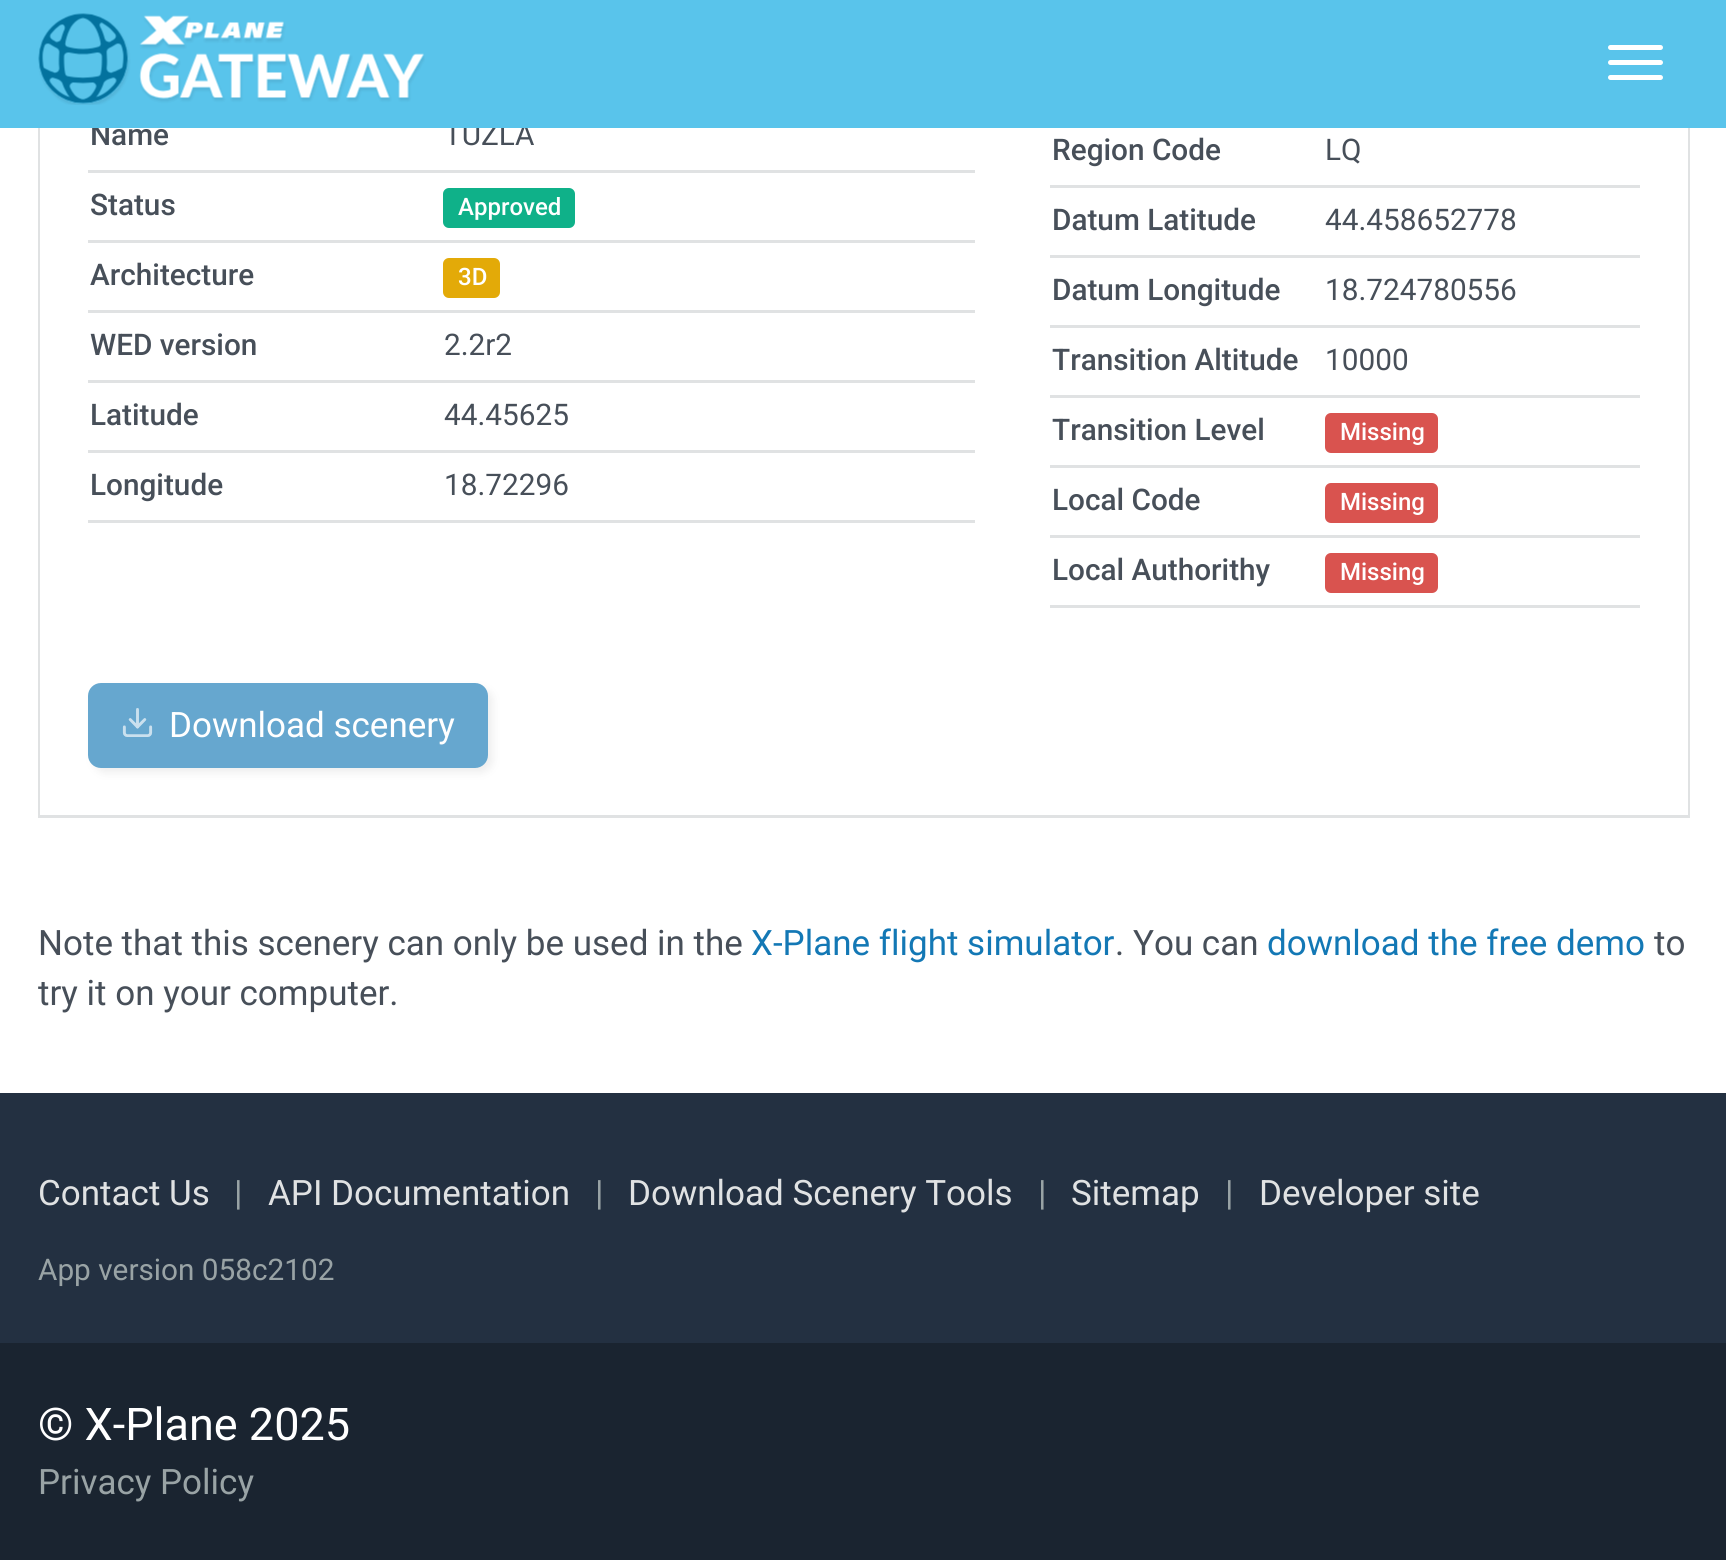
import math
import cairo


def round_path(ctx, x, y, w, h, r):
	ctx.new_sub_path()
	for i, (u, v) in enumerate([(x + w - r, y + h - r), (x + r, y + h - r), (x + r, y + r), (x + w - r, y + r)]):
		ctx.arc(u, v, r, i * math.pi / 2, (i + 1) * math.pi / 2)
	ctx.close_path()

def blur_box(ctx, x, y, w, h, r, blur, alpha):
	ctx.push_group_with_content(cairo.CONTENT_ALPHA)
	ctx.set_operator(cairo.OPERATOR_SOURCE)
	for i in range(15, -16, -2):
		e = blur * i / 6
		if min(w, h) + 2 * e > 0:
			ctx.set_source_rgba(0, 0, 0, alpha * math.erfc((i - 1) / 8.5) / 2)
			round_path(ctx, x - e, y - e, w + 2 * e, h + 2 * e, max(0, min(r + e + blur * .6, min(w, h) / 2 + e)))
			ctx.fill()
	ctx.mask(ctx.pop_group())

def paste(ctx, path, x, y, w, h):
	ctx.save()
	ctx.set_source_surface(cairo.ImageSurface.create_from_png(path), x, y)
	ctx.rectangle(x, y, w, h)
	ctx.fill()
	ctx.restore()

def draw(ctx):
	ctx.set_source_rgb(1, 1, 1)
	ctx.paint()
	ctx.set_source_rgb(0.878, 0.886, 0.89)
	ctx.new_path()
	ctx.move_to(1690, -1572)
	ctx.line_to(1690, 818)
	ctx.line_to(1688, 815)
	ctx.line_to(1688, -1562)
	ctx.close_path()
	ctx.fill()
	ctx.rectangle(38, 815, 1652, 3)
	ctx.fill()
	ctx.new_path()
	ctx.move_to(38, 818)
	ctx.line_to(38, -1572)
	ctx.line_to(40, -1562)
	ctx.line_to(40, 815)
	ctx.close_path()
	ctx.fill()
	ctx.select_font_face('Roboto Medium')
	ctx.set_font_size(29.75)
	ctx.set_source_rgb(0.278, 0.31, 0.349)
	ctx.move_to(90, 145)
	ctx.show_text('Name')
	ctx.select_font_face('Roboto')
	ctx.move_to(444, 145)
	ctx.show_text('TUZLA')
	ctx.set_source_rgb(0.349, 0.769, 0.918)
	ctx.rectangle(0, 0, 1726, 128)
	ctx.fill()
	paste(ctx, 'media/1.png', 38, 13, 387, 92)
	ctx.set_source_rgb(1, 1, 1)
	round_path(ctx, 1608, 45, 55, 5, 2.5)
	ctx.fill()
	round_path(ctx, 1608, 60, 55, 5, 2.5)
	ctx.fill()
	round_path(ctx, 1608, 75, 55, 5, 2.5)
	ctx.fill()
	ctx.set_source_rgb(0.878, 0.886, 0.89)
	ctx.rectangle(88, 170, 887, 3)
	ctx.fill()
	ctx.select_font_face('Roboto Medium')
	ctx.set_source_rgb(0.278, 0.31, 0.349)
	ctx.move_to(90, 215)
	ctx.show_text('Status')
	ctx.set_source_rgb(0.878, 0.886, 0.89)
	ctx.rectangle(88, 240, 887, 3)
	ctx.fill()
	ctx.set_source_rgb(0.059, 0.694, 0.537)
	round_path(ctx, 443, 188, 132, 40, 6)
	ctx.fill()
	ctx.set_font_size(24)
	ctx.set_source_rgb(1, 1, 1)
	ctx.move_to(458, 215)
	ctx.show_text('Approved')
	ctx.set_font_size(29.75)
	ctx.set_source_rgb(0.278, 0.31, 0.349)
	ctx.move_to(90, 285)
	ctx.show_text('Architecture')
	ctx.set_source_rgb(0.878, 0.886, 0.89)
	ctx.rectangle(88, 310, 887, 3)
	ctx.fill()
	ctx.set_source_rgb(0.89, 0.667, 0.035)
	round_path(ctx, 443, 258, 57, 40, 6)
	ctx.fill()
	ctx.set_font_size(24)
	ctx.set_source_rgb(1, 1, 1)
	ctx.move_to(458, 285)
	ctx.show_text('3D')
	ctx.set_font_size(29.75)
	ctx.set_source_rgb(0.278, 0.31, 0.349)
	ctx.move_to(90, 355)
	ctx.show_text('WED version')
	ctx.set_source_rgb(0.878, 0.886, 0.89)
	ctx.rectangle(88, 380, 887, 3)
	ctx.fill()
	ctx.select_font_face('Roboto')
	ctx.set_source_rgb(0.278, 0.31, 0.349)
	ctx.move_to(444, 355)
	ctx.show_text('2.2r2')
	ctx.select_font_face('Roboto Medium')
	ctx.move_to(90, 425)
	ctx.show_text('Latitude')
	ctx.set_source_rgb(0.878, 0.886, 0.89)
	ctx.rectangle(88, 450, 887, 3)
	ctx.fill()
	ctx.select_font_face('Roboto')
	ctx.set_source_rgb(0.278, 0.31, 0.349)
	ctx.move_to(444, 425)
	ctx.show_text('44.45625')
	ctx.select_font_face('Roboto Medium')
	ctx.move_to(90, 495)
	ctx.show_text('Longitude')
	ctx.set_source_rgb(0.878, 0.886, 0.89)
	ctx.rectangle(88, 520, 887, 3)
	ctx.fill()
	ctx.select_font_face('Roboto')
	ctx.set_source_rgb(0.278, 0.31, 0.349)
	ctx.move_to(444, 495)
	ctx.show_text('18.72296')
	ctx.select_font_face('Roboto Medium')
	ctx.move_to(1052, 160)
	ctx.show_text('Region Code')
	ctx.set_source_rgb(0.878, 0.886, 0.89)
	ctx.rectangle(1050, 185, 590, 3)
	ctx.fill()
	ctx.select_font_face('Roboto')
	ctx.set_source_rgb(0.278, 0.31, 0.349)
	ctx.move_to(1325, 160)
	ctx.show_text('LQ')
	ctx.select_font_face('Roboto Medium')
	ctx.move_to(1052, 230)
	ctx.show_text('Datum Latitude')
	ctx.set_source_rgb(0.878, 0.886, 0.89)
	ctx.rectangle(1050, 255, 590, 3)
	ctx.fill()
	ctx.select_font_face('Roboto')
	ctx.set_source_rgb(0.278, 0.31, 0.349)
	ctx.move_to(1325, 230)
	ctx.show_text('44.458652778')
	ctx.select_font_face('Roboto Medium')
	ctx.move_to(1052, 300)
	ctx.show_text('Datum Longitude')
	ctx.set_source_rgb(0.878, 0.886, 0.89)
	ctx.rectangle(1050, 325, 590, 3)
	ctx.fill()
	ctx.select_font_face('Roboto')
	ctx.set_source_rgb(0.278, 0.31, 0.349)
	ctx.move_to(1325, 300)
	ctx.show_text('18.724780556')
	ctx.select_font_face('Roboto Medium')
	ctx.move_to(1052, 370)
	ctx.show_text('Transition Altitude')
	ctx.set_source_rgb(0.878, 0.886, 0.89)
	ctx.rectangle(1050, 395, 590, 3)
	ctx.fill()
	ctx.select_font_face('Roboto')
	ctx.set_source_rgb(0.278, 0.31, 0.349)
	ctx.move_to(1325, 370)
	ctx.show_text('10000')
	ctx.select_font_face('Roboto Medium')
	ctx.move_to(1052, 440)
	ctx.show_text('Transition Level')
	ctx.set_source_rgb(0.878, 0.886, 0.89)
	ctx.rectangle(1050, 465, 590, 3)
	ctx.fill()
	ctx.set_source_rgb(0.851, 0.325, 0.31)
	round_path(ctx, 1325, 413, 113, 40, 6)
	ctx.fill()
	ctx.set_font_size(24)
	ctx.set_source_rgb(1, 1, 1)
	ctx.move_to(1340, 440)
	ctx.show_text('Missing')
	ctx.set_font_size(29.75)
	ctx.set_source_rgb(0.278, 0.31, 0.349)
	ctx.move_to(1052, 510)
	ctx.show_text('Local Code')
	ctx.set_source_rgb(0.878, 0.886, 0.89)
	ctx.rectangle(1050, 535, 590, 3)
	ctx.fill()
	ctx.set_source_rgb(0.851, 0.325, 0.31)
	round_path(ctx, 1325, 483, 113, 40, 6)
	ctx.fill()
	ctx.set_font_size(24)
	ctx.set_source_rgb(1, 1, 1)
	ctx.move_to(1340, 510)
	ctx.show_text('Missing')
	ctx.set_font_size(29.75)
	ctx.set_source_rgb(0.278, 0.31, 0.349)
	ctx.move_to(1052, 580)
	ctx.show_text('Local Authorithy')
	ctx.set_source_rgb(0.878, 0.886, 0.89)
	ctx.rectangle(1050, 605, 590, 3)
	ctx.fill()
	ctx.set_source_rgb(0.851, 0.325, 0.31)
	round_path(ctx, 1325, 553, 113, 40, 6)
	ctx.fill()
	ctx.set_font_size(24)
	ctx.set_source_rgb(1, 1, 1)
	ctx.move_to(1340, 580)
	ctx.show_text('Missing')
	ctx.set_source_rgb(0.349, 0.349, 0.349)
	blur_box(ctx, 93, 688, 400, 85, 13, 4, 0.1)
	ctx.set_source_rgb(0.4, 0.655, 0.812)
	round_path(ctx, 89.5, 684.5, 397, 82, 11.5)
	ctx.fill_preserve()
	ctx.set_line_width(3)
	ctx.stroke()
	paste(ctx, 'media/2.png', 122, 708, 31, 29)
	ctx.select_font_face('Roboto')
	ctx.set_font_size(35)
	ctx.set_source_rgb(1, 1, 1)
	ctx.move_to(169, 737)
	ctx.show_text('Download scenery')
	ctx.set_source_rgb(0.278, 0.31, 0.349)
	ctx.move_to(38, 955)
	ctx.show_text('Note that this scenery can only be used in the')
	ctx.set_source_rgb(0.078, 0.471, 0.71)
	ctx.move_to(751, 955)
	ctx.show_text('X-Plane flight simulator')
	ctx.set_source_rgb(0.278, 0.31, 0.349)
	ctx.move_to(1115, 955)
	ctx.show_text('. You can')
	ctx.set_source_rgb(0.078, 0.471, 0.71)
	ctx.move_to(1267, 955)
	ctx.show_text('download the free demo')
	ctx.set_source_rgb(0.278, 0.31, 0.349)
	ctx.move_to(1654, 955)
	ctx.show_text('to')
	ctx.move_to(38, 1005)
	ctx.show_text('try it on your computer.')
	ctx.set_source_rgb(0.137, 0.188, 0.255)
	ctx.rectangle(0, 1093, 1726, 250)
	ctx.fill()
	ctx.set_source_rgb(0.878, 0.886, 0.89)
	ctx.move_to(38, 1205)
	ctx.show_text('Contact Us')
	ctx.set_source_rgb(0.6, 0.639, 0.647)
	ctx.move_to(234, 1205)
	ctx.show_text('|')
	ctx.set_source_rgb(0.878, 0.886, 0.89)
	ctx.move_to(268, 1205)
	ctx.show_text('API Documentation')
	ctx.set_source_rgb(0.6, 0.639, 0.647)
	ctx.move_to(595, 1205)
	ctx.show_text('|')
	ctx.set_source_rgb(0.878, 0.886, 0.89)
	ctx.move_to(628, 1205)
	ctx.show_text('Download Scenery Tools')
	ctx.set_source_rgb(0.6, 0.639, 0.647)
	ctx.move_to(1038, 1205)
	ctx.show_text('|')
	ctx.set_source_rgb(0.878, 0.886, 0.89)
	ctx.move_to(1071, 1205)
	ctx.show_text('Sitemap')
	ctx.set_source_rgb(0.6, 0.639, 0.647)
	ctx.move_to(1225, 1205)
	ctx.show_text('|')
	ctx.set_source_rgb(0.878, 0.886, 0.89)
	ctx.move_to(1259, 1205)
	ctx.show_text('Developer site')
	ctx.set_font_size(29.75)
	ctx.set_source_rgb(0.6, 0.639, 0.647)
	ctx.move_to(38, 1280)
	ctx.show_text('App version 058c2102')
	ctx.set_source_rgb(0.102, 0.141, 0.188)
	ctx.rectangle(0, 1343, 1726, 217)
	ctx.fill()
	ctx.set_font_size(45)
	ctx.set_source_rgb(1, 1, 1)
	ctx.move_to(38, 1440)
	ctx.show_text('© X-Plane 2025')
	ctx.set_font_size(35)
	ctx.set_source_rgb(0.6, 0.639, 0.647)
	ctx.move_to(38, 1494)
	ctx.show_text('Privacy Policy')


surface = cairo.ImageSurface(cairo.FORMAT_RGB24, 1726, 1560)
ctx = cairo.Context(surface)
options = cairo.FontOptions()
options.set_hint_metrics(cairo.HINT_METRICS_OFF)
options.set_hint_style(cairo.HINT_STYLE_NONE)
ctx.set_font_options(options)
ctx.set_miter_limit(4)
draw(ctx)
surface.write_to_png('image.png')
